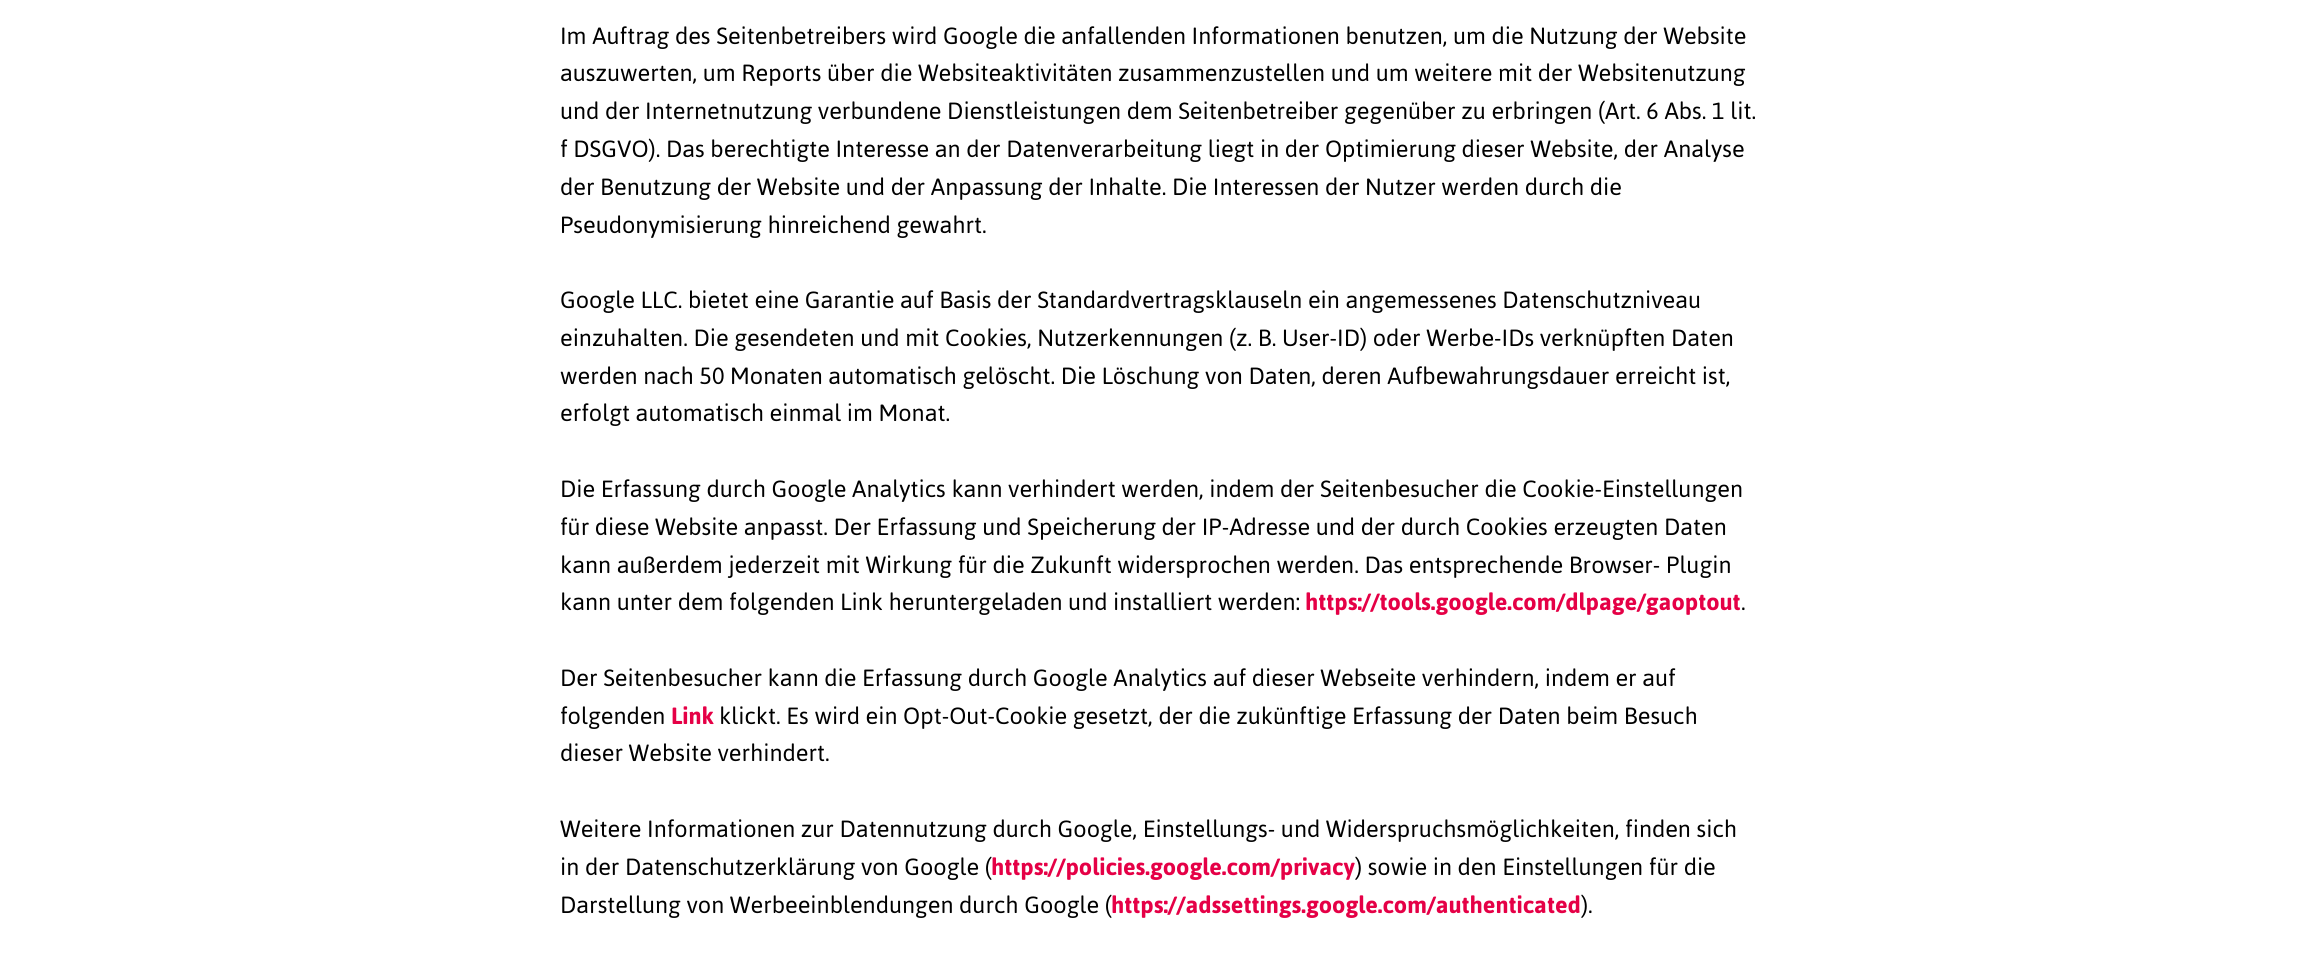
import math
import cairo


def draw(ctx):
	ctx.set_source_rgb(1, 1, 1)
	ctx.paint()
	ctx.select_font_face('Jaldi')
	ctx.set_font_size(27)
	ctx.set_source_rgb(0, 0, 0)
	for x, y, s in [
		(560, 44, 'Im Auftrag des Seitenbetreibers wird Google die anfallenden Informationen benutzen, um die Nutzung der Website'),
		(560, 81, 'auszuwerten, um Reports über die Websiteaktivitäten zusammenzustellen und um weitere mit der Websitenutzung'),
		(560, 119, 'und der Internetnutzung verbundene Dienstleistungen dem Seitenbetreiber gegenüber zu erbringen (Art. 6 Abs. 1 lit.'),
		(560, 157, 'f DSGVO). Das berechtigte Interesse an der Datenverarbeitung liegt in der Optimierung dieser Website, der Analyse'),
		(560, 195, 'der Benutzung der Website und der Anpassung der Inhalte. Die Interessen der Nutzer werden durch die'),
		(560, 233, 'Pseudonymisierung hinreichend gewahrt.'),
		(560, 308, 'Google LLC. bietet eine Garantie auf Basis der Standardvertragsklauseln ein angemessenes Datenschutzniveau'),
		(560, 346, 'einzuhalten. Die gesendeten und mit Cookies, Nutzerkennungen (z. B. User-ID) oder Werbe-IDs verknüpften Daten'),
		(560, 384, 'werden nach 50 Monaten automatisch gelöscht. Die Löschung von Daten, deren Aufbewahrungsdauer erreicht ist,'),
		(560, 421, 'erfolgt automatisch einmal im Monat.'),
		(560, 497, 'Die Erfassung durch Google Analytics kann verhindert werden, indem der Seitenbesucher die Cookie-Einstellungen'),
		(560, 535, 'für diese Website anpasst. Der Erfassung und Speicherung der IP-Adresse und der durch Cookies erzeugten Daten'),
		(560, 573, 'kann außerdem jederzeit mit Wirkung für die Zukunft widersprochen werden. Das entsprechende Browser- Plugin'),
		(560, 610, 'kann unter dem folgenden Link heruntergeladen und installiert werden:'),
	]:
		ctx.move_to(x, y)
		ctx.show_text(s)
	ctx.select_font_face('Jaldi', cairo.FONT_SLANT_NORMAL, cairo.FONT_WEIGHT_BOLD)
	ctx.set_source_rgb(0.898, 0, 0.275)
	ctx.move_to(1305, 610)
	ctx.show_text('https://tools.google.com/dlpage/gaoptout')
	ctx.select_font_face('Jaldi')
	ctx.set_source_rgb(0, 0, 0)
	for x, y, s in [
		(1741, 610, '.'),
		(560, 686, 'Der Seitenbesucher kann die Erfassung durch Google Analytics auf dieser Webseite verhindern, indem er auf'),
		(560, 724, 'folgenden'),
	]:
		ctx.move_to(x, y)
		ctx.show_text(s)
	ctx.select_font_face('Jaldi', cairo.FONT_SLANT_NORMAL, cairo.FONT_WEIGHT_BOLD)
	ctx.set_source_rgb(0.898, 0, 0.275)
	ctx.move_to(671, 724)
	ctx.show_text('Link')
	ctx.select_font_face('Jaldi')
	ctx.set_source_rgb(0, 0, 0)
	for x, y, s in [
		(719, 724, 'klickt. Es wird ein Opt-Out-Cookie gesetzt, der die zukünftige Erfassung der Daten beim Besuch'),
		(560, 761, 'dieser Website verhindert.'),
		(560, 837, 'Weitere Informationen zur Datennutzung durch Google, Einstellungs- und Widerspruchsmöglichkeiten, finden sich'),
		(560, 875, 'in der Datenschutzerklärung von Google ('),
	]:
		ctx.move_to(x, y)
		ctx.show_text(s)
	ctx.select_font_face('Jaldi', cairo.FONT_SLANT_NORMAL, cairo.FONT_WEIGHT_BOLD)
	ctx.set_source_rgb(0.898, 0, 0.275)
	ctx.move_to(991, 875)
	ctx.show_text('https://policies.google.com/privacy')
	ctx.select_font_face('Jaldi')
	ctx.set_source_rgb(0, 0, 0)
	ctx.move_to(1355, 875)
	ctx.show_text(') sowie in den Einstellungen für die')
	ctx.move_to(560, 913)
	ctx.show_text('Darstellung von Werbeeinblendungen durch Google (')
	ctx.select_font_face('Jaldi', cairo.FONT_SLANT_NORMAL, cairo.FONT_WEIGHT_BOLD)
	ctx.set_source_rgb(0.898, 0, 0.275)
	ctx.move_to(1111, 913)
	ctx.show_text('https://adssettings.google.com/authenticated')
	ctx.select_font_face('Jaldi')
	ctx.set_source_rgb(0, 0, 0)
	ctx.move_to(1581, 913)
	ctx.show_text(').')


surface = cairo.ImageSurface(cairo.FORMAT_RGB24, 2319, 976)
ctx = cairo.Context(surface)
options = cairo.FontOptions()
options.set_hint_metrics(cairo.HINT_METRICS_OFF)
options.set_hint_style(cairo.HINT_STYLE_NONE)
ctx.set_font_options(options)
ctx.set_miter_limit(4)
draw(ctx)
surface.write_to_png('image.png')
